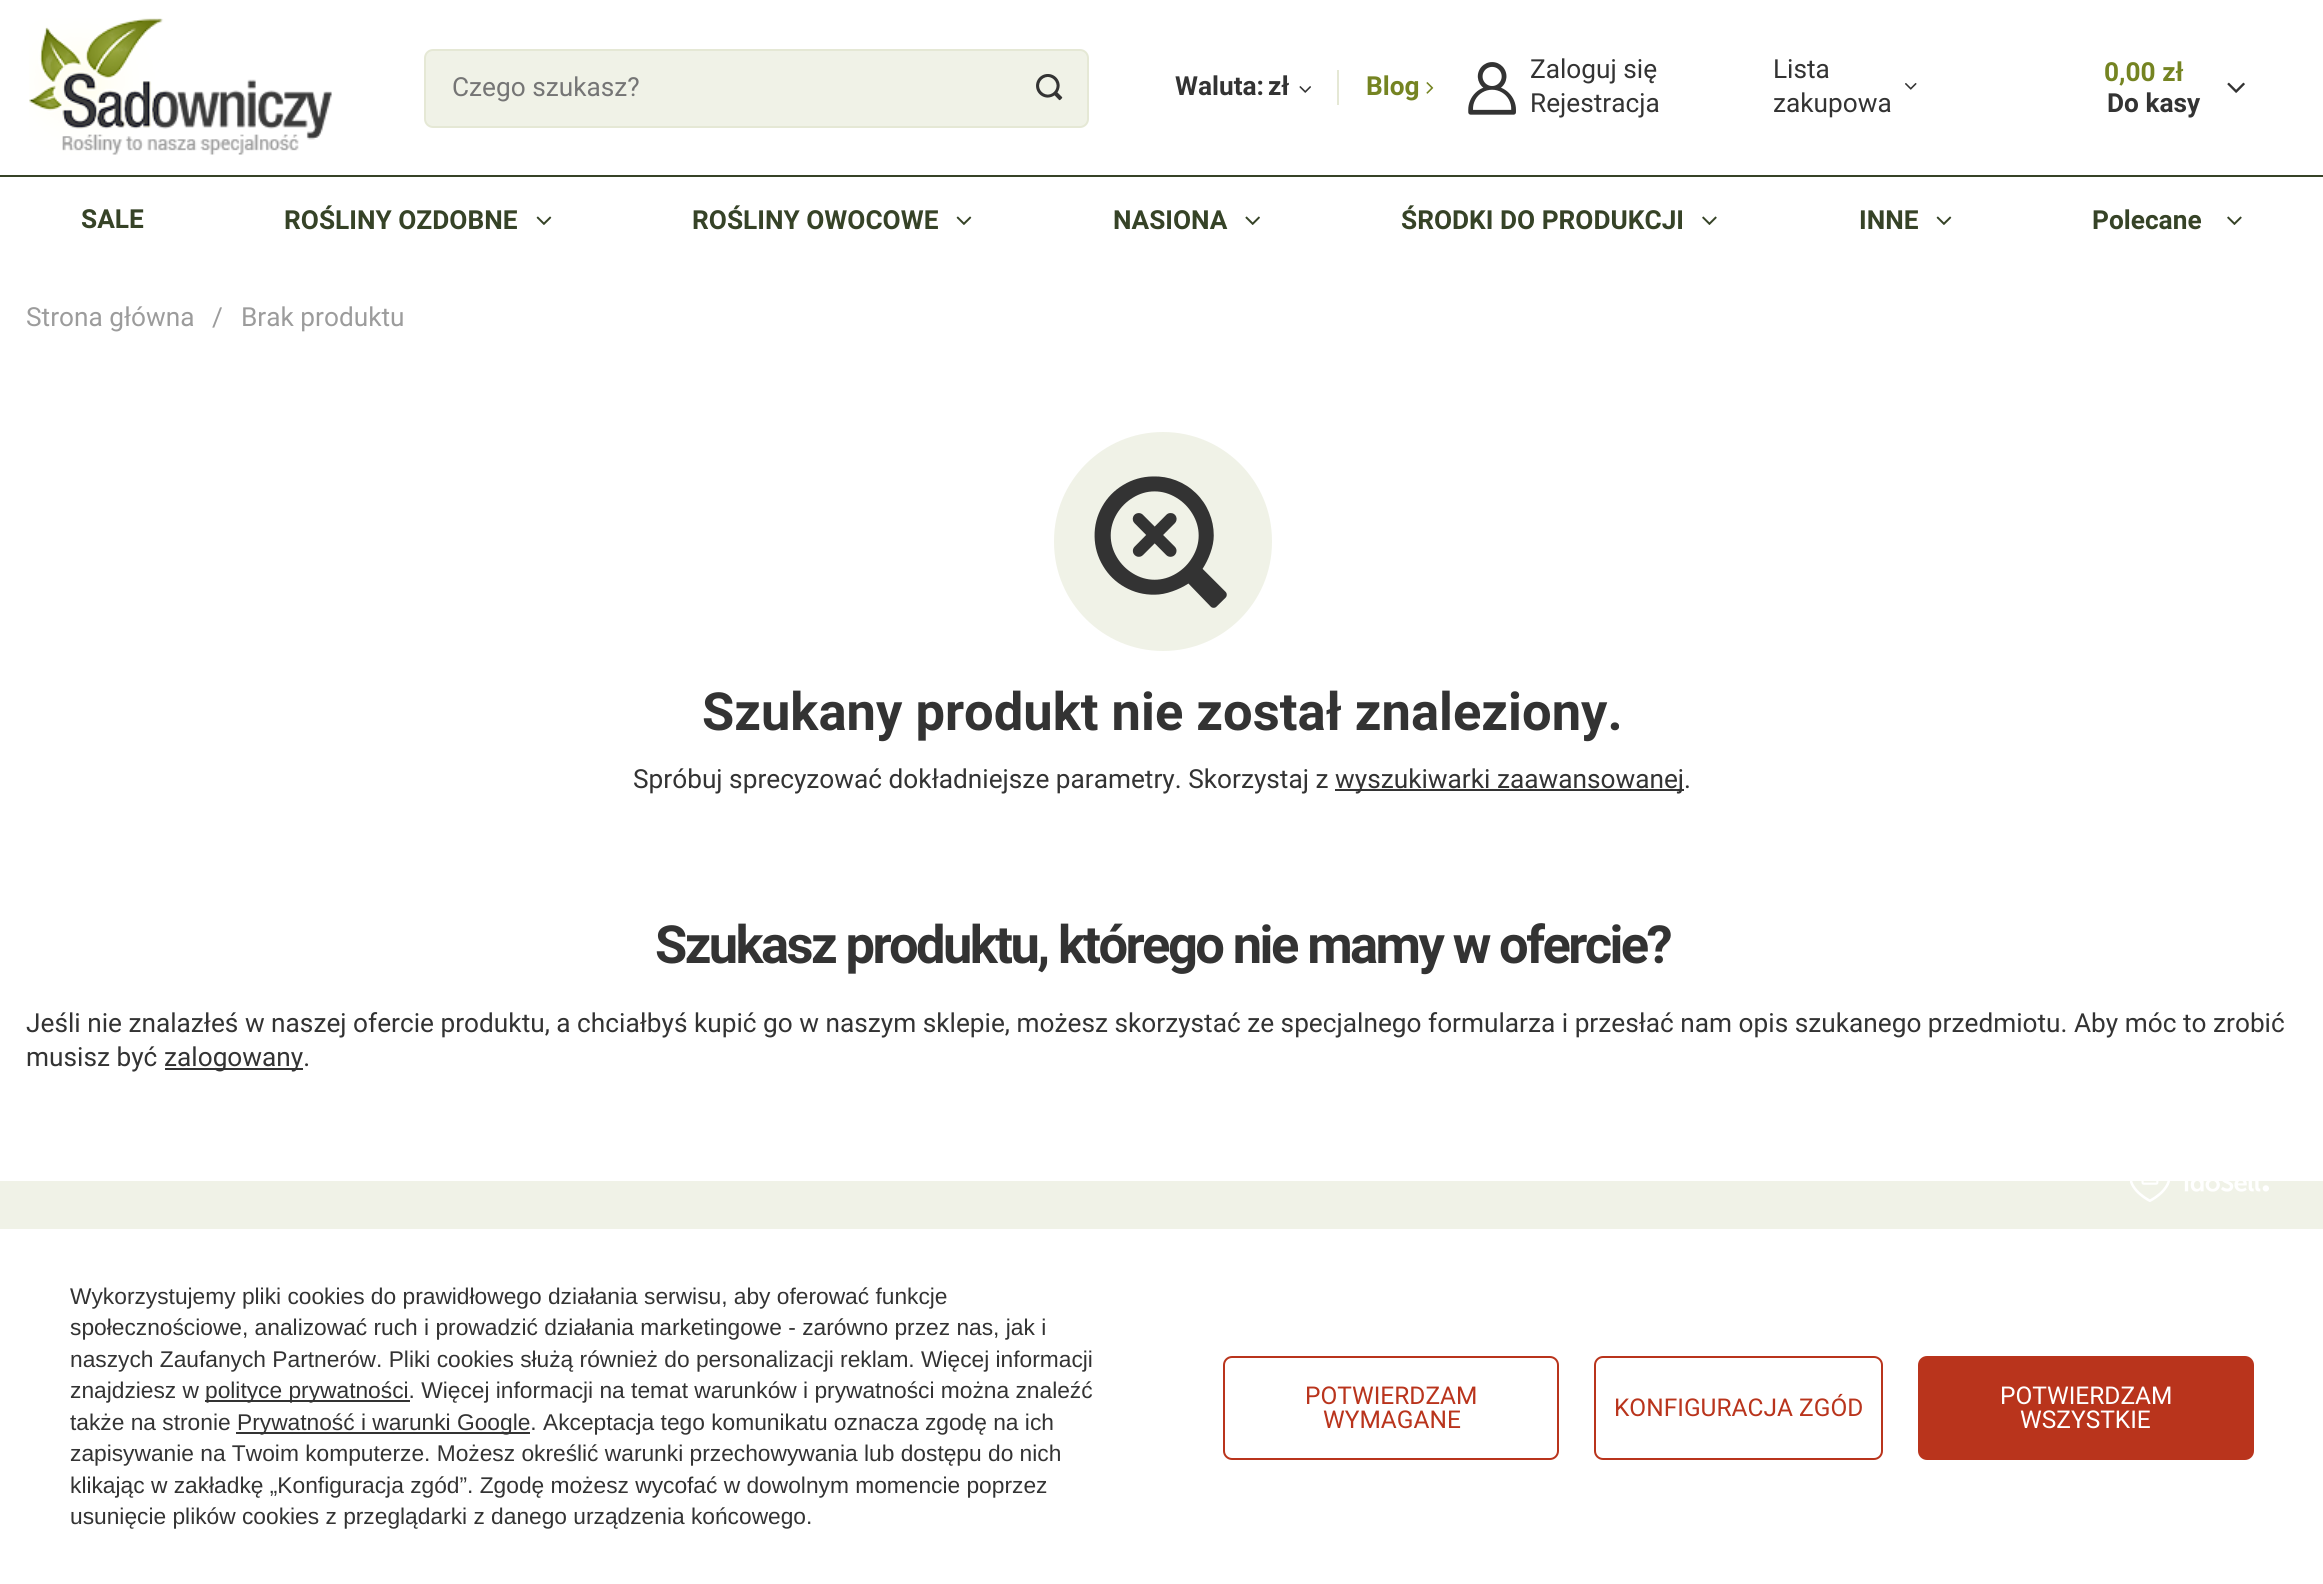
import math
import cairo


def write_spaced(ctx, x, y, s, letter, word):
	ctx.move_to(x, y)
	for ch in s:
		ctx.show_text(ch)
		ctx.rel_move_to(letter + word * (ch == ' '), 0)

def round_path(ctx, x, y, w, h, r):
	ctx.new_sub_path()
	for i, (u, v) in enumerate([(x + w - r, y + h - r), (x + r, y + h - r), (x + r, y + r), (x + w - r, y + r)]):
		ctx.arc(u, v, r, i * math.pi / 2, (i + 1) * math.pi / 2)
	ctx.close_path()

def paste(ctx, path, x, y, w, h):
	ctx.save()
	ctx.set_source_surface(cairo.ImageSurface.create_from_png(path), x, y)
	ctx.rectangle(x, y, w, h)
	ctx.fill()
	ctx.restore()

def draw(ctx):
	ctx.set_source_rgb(1, 1, 1)
	ctx.paint()
	paste(ctx, 'media/1.png', 29, 18, 303, 137)
	ctx.set_source_rgb(0.941, 0.949, 0.906)
	round_path(ctx, 425, 50, 663, 77, 8)
	ctx.fill_preserve()
	ctx.set_source_rgb(0.898, 0.91, 0.835)
	ctx.stroke()
	ctx.select_font_face('Roboto')
	ctx.set_font_size(26.25)
	ctx.set_source_rgb(0.459, 0.459, 0.459)
	ctx.move_to(452, 96)
	ctx.show_text('Czego szukasz?')
	paste(ctx, 'media/2.png', 1036, 74, 27, 27)
	ctx.select_font_face('Roboto', cairo.FONT_SLANT_NORMAL, cairo.FONT_WEIGHT_BOLD)
	ctx.set_source_rgb(0.2, 0.2, 0.2)
	ctx.move_to(1175, 95)
	ctx.show_text('Waluta:')
	ctx.move_to(1268, 95)
	ctx.show_text('zł')
	paste(ctx, 'media/3.png', 1299, 86, 12, 7)
	ctx.set_source_rgb(0.898, 0.91, 0.835)
	ctx.rectangle(1337, 70, 2, 35)
	ctx.fill()
	ctx.set_source_rgb(0.459, 0.518, 0.133)
	ctx.move_to(1366, 95)
	ctx.show_text('Blog')
	paste(ctx, 'media/4.png', 1426, 82, 8, 12)
	paste(ctx, 'media/5.png', 1468, 62, 48, 53)
	ctx.select_font_face('Roboto')
	ctx.set_source_rgb(0.2, 0.2, 0.2)
	for x, y, s in [
		(1530, 78, 'Zaloguj się'),
		(1530, 112, 'Rejestracja'),
		(1773, 78, 'Lista'),
	]:
		ctx.move_to(x, y)
		ctx.show_text(s)
	paste(ctx, 'media/6.png', 1905, 83, 12, 7)
	ctx.move_to(1773, 112)
	ctx.show_text('zakupowa')
	ctx.select_font_face('Roboto', cairo.FONT_SLANT_NORMAL, cairo.FONT_WEIGHT_BOLD)
	ctx.set_source_rgb(0.459, 0.518, 0.133)
	ctx.move_to(2104, 81)
	ctx.show_text('0,00 zł')
	ctx.set_source_rgb(0.2, 0.2, 0.2)
	ctx.move_to(2107, 112)
	ctx.show_text('Do kasy')
	paste(ctx, 'media/7.png', 2227, 82, 18, 11)
	ctx.set_source_rgb(0.212, 0.263, 0.153)
	ctx.rectangle(0, 175, 2323, 2)
	ctx.fill()
	ctx.move_to(81, 228)
	ctx.show_text('SALE')
	ctx.move_to(284, 229)
	ctx.show_text('ROŚLINY OZDOBNE')
	paste(ctx, 'media/8.png', 536, 216, 16, 9)
	ctx.move_to(692, 229)
	ctx.show_text('ROŚLINY OWOCOWE')
	paste(ctx, 'media/8.png', 956, 216, 16, 9)
	ctx.move_to(1113, 229)
	ctx.show_text('NASIONA')
	paste(ctx, 'media/9.png', 1245, 216, 15, 9)
	ctx.move_to(1401, 229)
	ctx.show_text('ŚRODKI DO PRODUKCJI')
	paste(ctx, 'media/10.png', 1702, 216, 15, 9)
	ctx.move_to(1859, 229)
	ctx.show_text('INNE')
	paste(ctx, 'media/8.png', 1936, 216, 16, 9)
	ctx.move_to(2092, 229)
	ctx.show_text('Polecane')
	paste(ctx, 'media/10.png', 2227, 216, 15, 9)
	ctx.select_font_face('Roboto')
	ctx.set_source_rgb(0.612, 0.612, 0.612)
	for x, y, s in [
		(26, 326, 'Strona główna'),
		(212, 326, '/'),
		(241, 326, 'Brak produktu'),
	]:
		ctx.move_to(x, y)
		ctx.show_text(s)
	ctx.set_source_rgb(0.941, 0.949, 0.906)
	round_path(ctx, 1054, 432, 218, 219, 109)
	ctx.fill()
	paste(ctx, 'media/11.png', 1094, 476, 133, 132)
	ctx.select_font_face('Roboto', cairo.FONT_SLANT_NORMAL, cairo.FONT_WEIGHT_BOLD)
	ctx.set_font_size(52.5)
	ctx.set_source_rgb(0.2, 0.2, 0.2)
	ctx.move_to(702, 730)
	ctx.show_text('Szukany produkt nie został znaleziony.')
	ctx.select_font_face('Roboto')
	ctx.set_font_size(26.25)
	ctx.move_to(633, 788)
	ctx.show_text('Spróbuj sprecyzować dokładniejsze parametry. Skorzystaj z')
	ctx.rectangle(1335, 789, 349, 2)
	ctx.fill()
	ctx.move_to(1335, 788)
	ctx.show_text('wyszukiwarki zaawansowanej.')
	ctx.select_font_face('Roboto', cairo.FONT_SLANT_NORMAL, cairo.FONT_WEIGHT_BOLD)
	ctx.set_font_size(52.5)
	write_spaced(ctx, 655, 963, 'Szukasz produktu, którego nie mamy w ofercie?', -2.6, 0)
	ctx.select_font_face('Roboto')
	ctx.set_font_size(26.25)
	ctx.move_to(26, 1032)
	ctx.show_text('Jeśli nie znalazłeś w naszej ofercie produktu, a chciałbyś kupić go w naszym sklepie, możesz skorzystać ze specjalnego formularza i przesłać nam opis szukanego przedmiotu. Aby móc to zrobić')
	ctx.move_to(26, 1066)
	ctx.show_text('musisz być')
	ctx.rectangle(165, 1068, 138, 2)
	ctx.fill()
	ctx.move_to(164, 1066)
	ctx.show_text('zalogowany.')
	ctx.set_source_rgb(0.941, 0.949, 0.906)
	ctx.rectangle(0, 1181, 2323, 48)
	ctx.fill()
	paste(ctx, 'media/12.png', 2130, 1181, 139, 21)
	ctx.select_font_face('Liberation Sans')
	ctx.set_font_size(22.75)
	ctx.set_source_rgb(0.2, 0.2, 0.2)
	for x, y, s in [
		(70, 1304, 'Wykorzystujemy pliki cookies do prawidłowego działania serwisu, aby oferować funkcje'),
		(70, 1335, 'społecznościowe, analizować ruch i prowadzić działania marketingowe - zarówno przez nas, jak i'),
		(70, 1367, 'naszych Zaufanych Partnerów. Pliki cookies służą również do personalizacji reklam. Więcej informacji'),
		(70, 1398, 'znajdziesz w'),
	]:
		ctx.move_to(x, y)
		ctx.show_text(s)
	ctx.rectangle(205, 1400, 205, 2)
	ctx.fill()
	ctx.move_to(205, 1398)
	ctx.show_text('polityce prywatności. Więcej informacji na temat warunków i prywatności można znaleźć')
	ctx.move_to(70, 1430)
	ctx.show_text('także na stronie')
	ctx.rectangle(236, 1432, 294, 2)
	ctx.fill()
	for x, y, s in [
		(237, 1430, 'Prywatność i warunki Google. Akceptacja tego komunikatu oznacza zgodę na ich'),
		(70, 1461, 'zapisywanie na Twoim komputerze. Możesz określić warunki przechowywania lub dostępu do nich'),
		(70, 1493, 'klikając w zakładkę „Konfiguracja zgód”. Zgodę możesz wycofać w dowolnym momencie poprzez'),
		(70, 1524, 'usunięcie plików cookies z przeglądarki z danego urządzenia końcowego.'),
	]:
		ctx.move_to(x, y)
		ctx.show_text(s)
	round_path(ctx, 1224, 1357, 334, 102, 8)
	ctx.set_source_rgb(0.725, 0.204, 0.11)
	ctx.stroke()
	ctx.select_font_face('Roboto')
	ctx.set_font_size(24.5)
	ctx.move_to(1305, 1404)
	ctx.show_text('POTWIERDZAM')
	ctx.move_to(1323, 1428)
	ctx.show_text('WYMAGANE')
	round_path(ctx, 1595, 1357, 287, 102, 8)
	ctx.stroke()
	ctx.move_to(1614, 1416)
	ctx.show_text('KONFIGURACJA ZGÓD')
	round_path(ctx, 1919, 1357, 334, 102, 8)
	ctx.fill_preserve()
	ctx.stroke()
	ctx.set_source_rgb(1, 1, 1)
	ctx.move_to(2000, 1404)
	ctx.show_text('POTWIERDZAM')
	ctx.move_to(2020, 1428)
	ctx.show_text('WSZYSTKIE')


surface = cairo.ImageSurface(cairo.FORMAT_RGB24, 2323, 1584)
ctx = cairo.Context(surface)
options = cairo.FontOptions()
options.set_hint_metrics(cairo.HINT_METRICS_OFF)
options.set_hint_style(cairo.HINT_STYLE_NONE)
ctx.set_font_options(options)
ctx.set_miter_limit(4)
draw(ctx)
surface.write_to_png('image.png')
